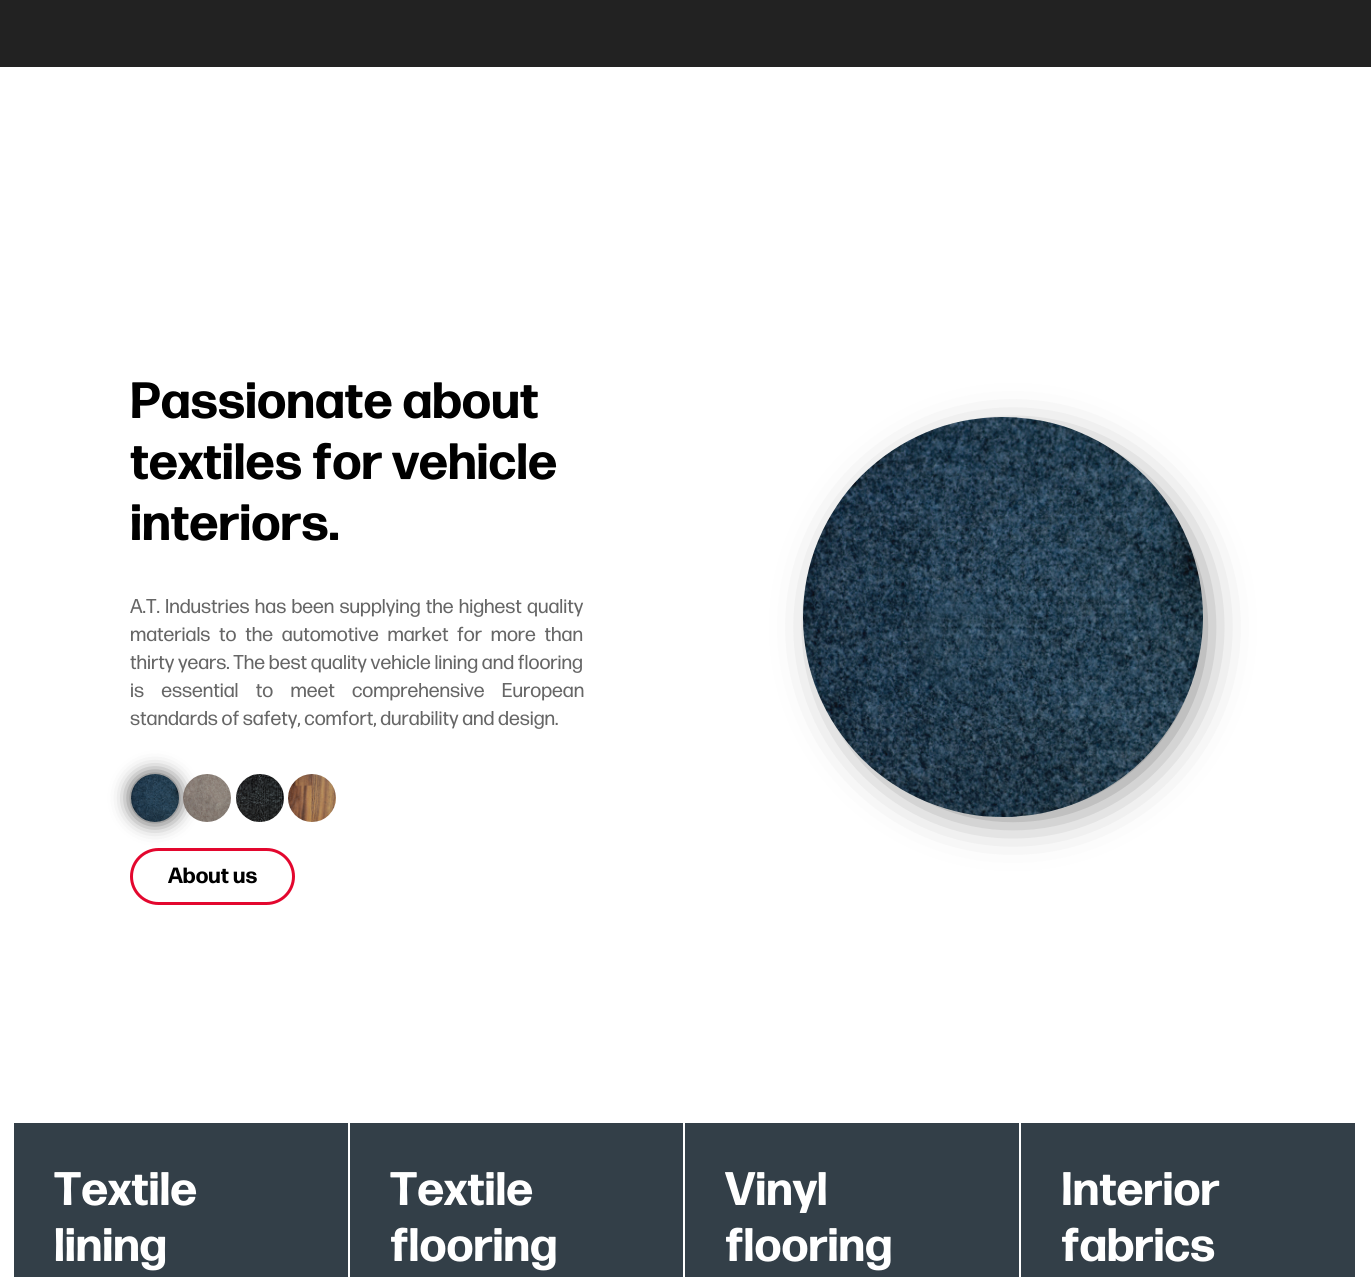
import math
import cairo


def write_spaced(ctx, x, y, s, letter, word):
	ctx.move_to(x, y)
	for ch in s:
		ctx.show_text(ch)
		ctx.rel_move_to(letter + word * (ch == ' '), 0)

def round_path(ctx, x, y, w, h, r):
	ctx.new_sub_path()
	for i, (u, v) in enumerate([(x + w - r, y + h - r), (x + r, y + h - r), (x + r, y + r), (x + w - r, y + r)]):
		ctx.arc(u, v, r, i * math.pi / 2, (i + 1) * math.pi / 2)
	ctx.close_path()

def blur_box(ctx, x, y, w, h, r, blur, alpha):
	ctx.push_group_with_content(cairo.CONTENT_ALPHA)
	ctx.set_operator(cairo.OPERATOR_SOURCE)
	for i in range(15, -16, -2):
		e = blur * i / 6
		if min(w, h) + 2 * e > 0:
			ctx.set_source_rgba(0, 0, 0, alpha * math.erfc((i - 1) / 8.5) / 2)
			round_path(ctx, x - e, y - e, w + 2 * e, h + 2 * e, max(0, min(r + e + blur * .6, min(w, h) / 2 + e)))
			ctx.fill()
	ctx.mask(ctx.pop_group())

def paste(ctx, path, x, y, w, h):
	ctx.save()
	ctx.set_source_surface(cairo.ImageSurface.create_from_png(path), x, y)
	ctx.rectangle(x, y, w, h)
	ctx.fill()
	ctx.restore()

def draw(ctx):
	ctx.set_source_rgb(1, 1, 1)
	ctx.paint()
	ctx.set_source_rgb(0.133, 0.133, 0.133)
	ctx.rectangle(0, 0, 1371, 67)
	ctx.fill()
	ctx.select_font_face('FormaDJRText', cairo.FONT_SLANT_NORMAL, cairo.FONT_WEIGHT_BOLD)
	ctx.set_font_size(51)
	ctx.set_source_rgb(0, 0, 0)
	for x, y, s in [
		(130, 418, 'Passionate about'),
		(130, 479, 'textiles for vehicle'),
		(130, 540, 'interiors.'),
	]:
		ctx.move_to(x, y)
		ctx.show_text(s)
	ctx.select_font_face('FormaDJRText')
	ctx.set_font_size(20)
	ctx.set_source_rgb(0.4, 0.4, 0.4)
	write_spaced(ctx, 130, 613, 'A.T. Industries has been supplying the highest quality', 0, 1.5)
	write_spaced(ctx, 130, 641, 'materials to the automotive market for more than', 0, 5)
	ctx.move_to(130, 669)
	ctx.show_text('thirty years. The best quality vehicle lining and flooring')
	write_spaced(ctx, 130, 697, 'is essential to meet comprehensive European', 0, 13.5)
	ctx.move_to(130, 725)
	ctx.show_text('standards of safety, comfort, durability and design.')
	ctx.set_source_rgb(0, 0, 0)
	blur_box(ctx, 131, 774, 48, 48, 24, 9.5, 0.75)
	paste(ctx, 'media/1.png', 131, 774, 48, 48)
	paste(ctx, 'media/2.png', 183, 774, 48, 48)
	paste(ctx, 'media/3.png', 236, 774, 48, 48)
	paste(ctx, 'media/4.png', 288, 774, 48, 48)
	round_path(ctx, 131.5, 849.5, 162, 54, 27)
	ctx.set_source_rgb(0.89, 0.031, 0.18)
	ctx.set_line_width(3)
	ctx.stroke()
	ctx.select_font_face('FormaDJRText', cairo.FONT_SLANT_NORMAL, cairo.FONT_WEIGHT_BOLD)
	ctx.set_font_size(22)
	ctx.set_source_rgb(0, 0, 0)
	ctx.move_to(168, 883)
	ctx.show_text('About us')
	ctx.set_source_rgb(0, 0, 0)
	blur_box(ctx, 830, 444, 366, 366, 183, 24.5, 0.67)
	paste(ctx, 'media/5.png', 803, 417, 400, 400)
	ctx.set_source_rgb(0.2, 0.247, 0.282)
	ctx.rectangle(14, 1123, 334, 154)
	ctx.fill()
	ctx.set_font_size(47)
	ctx.set_source_rgb(1, 1, 1)
	ctx.move_to(54, 1205)
	ctx.show_text('Textile')
	ctx.move_to(54, 1261)
	ctx.show_text('lining')
	ctx.set_source_rgb(0.2, 0.247, 0.282)
	ctx.rectangle(350, 1123, 333, 154)
	ctx.fill()
	ctx.set_source_rgb(1, 1, 1)
	ctx.move_to(390, 1205)
	ctx.show_text('Textile')
	ctx.move_to(390, 1261)
	ctx.show_text('flooring')
	ctx.set_source_rgb(0.2, 0.247, 0.282)
	ctx.rectangle(685, 1123, 334, 154)
	ctx.fill()
	ctx.set_source_rgb(1, 1, 1)
	ctx.move_to(725, 1205)
	ctx.show_text('Vinyl')
	ctx.move_to(725, 1261)
	ctx.show_text('flooring')
	ctx.set_source_rgb(0.2, 0.247, 0.282)
	ctx.rectangle(1021, 1123, 334, 154)
	ctx.fill()
	ctx.set_source_rgb(1, 1, 1)
	ctx.move_to(1061, 1205)
	ctx.show_text('Interior')
	ctx.move_to(1061, 1261)
	ctx.show_text('fabrics')


surface = cairo.ImageSurface(cairo.FORMAT_RGB24, 1371, 1277)
ctx = cairo.Context(surface)
options = cairo.FontOptions()
options.set_hint_metrics(cairo.HINT_METRICS_OFF)
options.set_hint_style(cairo.HINT_STYLE_NONE)
ctx.set_font_options(options)
ctx.set_miter_limit(4)
draw(ctx)
surface.write_to_png('image.png')
